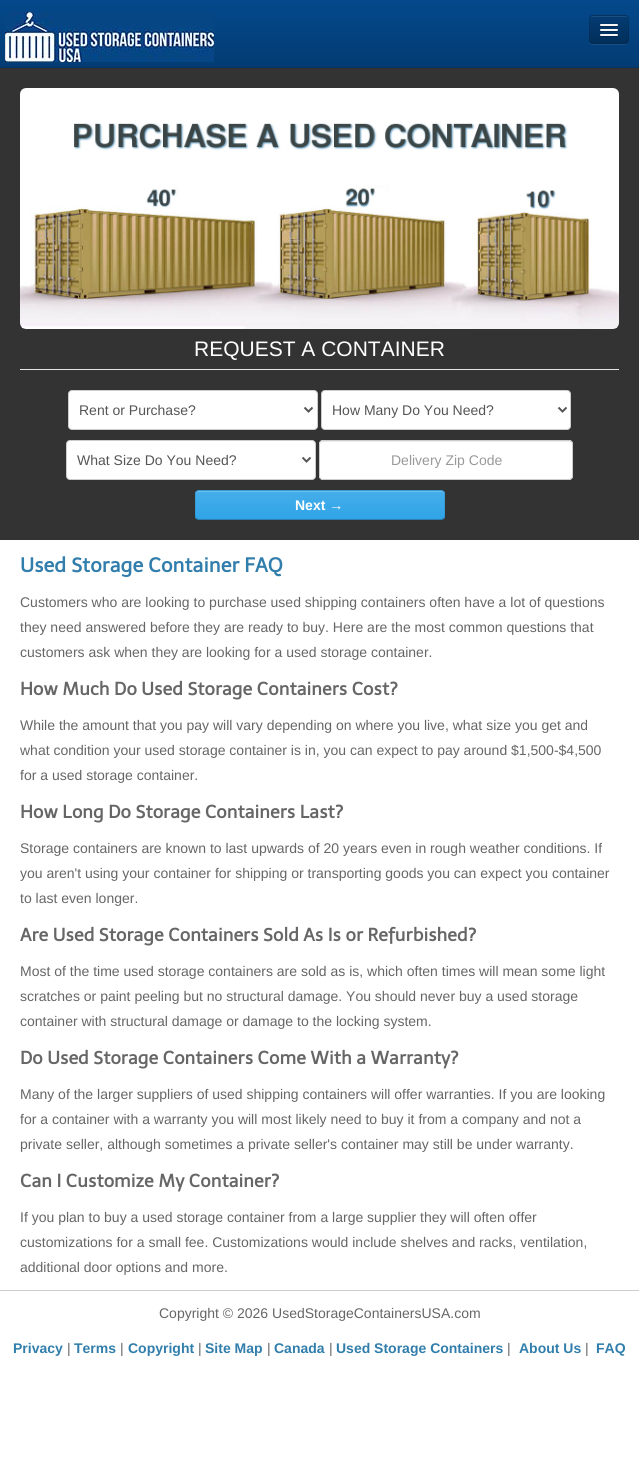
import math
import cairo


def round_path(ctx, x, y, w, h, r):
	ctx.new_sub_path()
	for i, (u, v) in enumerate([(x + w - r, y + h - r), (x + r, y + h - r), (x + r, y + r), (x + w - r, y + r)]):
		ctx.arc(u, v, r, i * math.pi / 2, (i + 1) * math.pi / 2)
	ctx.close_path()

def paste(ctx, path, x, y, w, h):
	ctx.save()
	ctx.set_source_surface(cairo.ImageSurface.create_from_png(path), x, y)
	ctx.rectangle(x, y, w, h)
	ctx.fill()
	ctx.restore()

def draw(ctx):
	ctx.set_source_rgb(1, 1, 1)
	ctx.paint()
	gradient = cairo.LinearGradient(320, 0, 320, 67)
	gradient.add_color_stop_rgba(0, 0.016, 0.286, 0.549, 1)
	gradient.add_color_stop_rgba(1, 0.012, 0.235, 0.451, 1)
	ctx.set_source(gradient)
	ctx.rectangle(0, 0, 639, 67)
	ctx.fill()
	ctx.set_source_rgb(0.012, 0.204, 0.392)
	ctx.rectangle(0, 67, 639, 1)
	ctx.fill()
	paste(ctx, 'media/1.png', 5, 12, 209, 50)
	ctx.set_source_rgb(0.086, 0.306, 0.522)
	ctx.new_path()
	ctx.move_to(589, 40)
	ctx.curve_to(589, 46, 594, 45, 598, 45)
	ctx.line_to(620, 45)
	ctx.curve_to(624, 45, 629, 46, 629, 40)
	ctx.curve_to(629, 42, 627, 44, 625, 44)
	ctx.line_to(593, 44)
	ctx.curve_to(591, 44, 589, 42, 589, 40)
	ctx.close_path()
	ctx.fill()
	ctx.set_source_rgb(0.012, 0.216, 0.412)
	round_path(ctx, 589, 15, 40, 29, 4)
	ctx.fill()
	ctx.save()
	round_path(ctx, 589, 15, 40, 29, 4)
	ctx.clip()
	gradient = cairo.LinearGradient(609, 16, 609, 43)
	gradient.add_color_stop_rgba(0, 0.012, 0.235, 0.451, 1)
	gradient.add_color_stop_rgba(1, 0.008, 0.184, 0.353, 1)
	ctx.set_source(gradient)
	ctx.rectangle(589, 16, 40, 27)
	ctx.fill()
	ctx.restore()
	ctx.set_source_rgb(0.11, 0.314, 0.506)
	ctx.new_path()
	ctx.move_to(593, 17)
	ctx.line_to(625, 17)
	ctx.curve_to(627, 17, 628, 18, 628, 20)
	ctx.curve_to(628, 15, 624, 16, 619.5, 16)
	ctx.line_to(598.5, 16)
	ctx.curve_to(594, 16, 590, 15, 590, 20)
	ctx.curve_to(590, 18, 591, 17, 593, 17)
	ctx.close_path()
	ctx.fill()
	ctx.new_path()
	ctx.move_to(627.5, 42.5)
	ctx.curve_to(627, 43, 626, 43.5, 625, 43.5)
	ctx.line_to(593, 43.5)
	ctx.curve_to(592, 43.5, 591, 43, 590.5, 42.5)
	ctx.set_source_rgba(0, 0, 0, 0.25)
	ctx.set_line_width(1)
	ctx.stroke()
	ctx.new_path()
	ctx.move_to(590.5, 42.5)
	ctx.curve_to(590, 42, 589.5, 41, 589.5, 40)
	ctx.line_to(589.5, 19)
	ctx.curve_to(589.5, 18, 590, 17, 590.5, 16.5)
	ctx.curve_to(591, 16, 592, 15.5, 593, 15.5)
	ctx.line_to(625, 15.5)
	ctx.curve_to(626, 15.5, 627, 16, 627.5, 16.5)
	ctx.curve_to(628, 17, 628.5, 18, 628.5, 19)
	ctx.line_to(628.5, 40)
	ctx.curve_to(628.5, 41, 628, 42, 627.5, 42.5)
	ctx.set_source_rgba(0, 0, 0, 0.1)
	ctx.stroke()
	ctx.set_source_rgb(0.008, 0.161, 0.31)
	ctx.new_path()
	ctx.move_to(600, 25.5)
	ctx.curve_to(599, 27.5, 603.5, 27, 603.5, 27)
	ctx.line_to(614.5, 27)
	ctx.curve_to(614.5, 27, 619, 27.5, 618, 25.5)
	ctx.curve_to(617, 26.5, 610.5, 26, 609, 26)
	ctx.curve_to(607.5, 26, 601, 26.5, 600, 25.5)
	ctx.close_path()
	ctx.fill()
	ctx.set_source_rgb(0.961, 0.961, 0.961)
	round_path(ctx, 600, 24, 18, 2, 1)
	ctx.fill()
	ctx.set_source_rgb(0.008, 0.157, 0.298)
	ctx.new_path()
	ctx.move_to(600, 30.5)
	ctx.curve_to(599, 32.5, 603.5, 32, 603.5, 32)
	ctx.line_to(614.5, 32)
	ctx.curve_to(614.5, 32, 619, 32.5, 618, 30.5)
	ctx.curve_to(617, 31.5, 610.5, 31, 609, 31)
	ctx.curve_to(607.5, 31, 601, 31.5, 600, 30.5)
	ctx.close_path()
	ctx.fill()
	ctx.set_source_rgb(0.961, 0.961, 0.961)
	round_path(ctx, 600, 29, 18, 2, 1)
	ctx.fill()
	ctx.set_source_rgb(0.008, 0.149, 0.282)
	ctx.new_path()
	ctx.move_to(600, 35.5)
	ctx.curve_to(599, 37.5, 603.5, 37, 603.5, 37)
	ctx.line_to(614.5, 37)
	ctx.curve_to(614.5, 37, 619, 37.5, 618, 35.5)
	ctx.curve_to(617, 36.5, 610.5, 36, 609, 36)
	ctx.curve_to(607.5, 36, 601, 36.5, 600, 35.5)
	ctx.close_path()
	ctx.fill()
	ctx.set_source_rgb(0.961, 0.961, 0.961)
	round_path(ctx, 600, 34, 18, 2, 1)
	ctx.fill()
	ctx.set_source_rgb(0.2, 0.2, 0.2)
	ctx.rectangle(0, 68, 639, 472)
	ctx.fill()
	paste(ctx, 'media/2.png', 20, 88, 599, 241)
	ctx.set_source_rgb(0.898, 0.898, 0.898)
	ctx.rectangle(20, 369, 599, 1)
	ctx.fill()
	ctx.select_font_face('Liberation Sans')
	ctx.set_font_size(21)
	ctx.set_source_rgb(1, 1, 1)
	ctx.move_to(194, 356)
	ctx.show_text('REQUEST A CONTAINER')
	round_path(ctx, 68.5, 390.5, 249, 39, 3.5)
	ctx.fill_preserve()
	ctx.set_source_rgb(0.8, 0.8, 0.8)
	ctx.stroke()
	ctx.new_path()
	ctx.move_to(304.5, 407.5)
	ctx.line_to(308.5, 411.5)
	ctx.line_to(312.5, 407.5)
	ctx.set_source_rgb(0.333, 0.333, 0.333)
	ctx.set_line_width(2)
	ctx.stroke()
	ctx.set_font_size(14)
	ctx.move_to(79, 415)
	ctx.show_text('Rent or Purchase?')
	ctx.set_source_rgb(1, 1, 1)
	round_path(ctx, 321.5, 390.5, 249, 39, 3.5)
	ctx.fill_preserve()
	ctx.set_source_rgb(0.8, 0.8, 0.8)
	ctx.set_line_width(1)
	ctx.stroke()
	ctx.new_path()
	ctx.move_to(558.5, 407.5)
	ctx.line_to(562.5, 411.5)
	ctx.line_to(566.5, 407.5)
	ctx.set_source_rgb(0.333, 0.333, 0.333)
	ctx.set_line_width(2)
	ctx.stroke()
	ctx.move_to(332, 415)
	ctx.show_text('How Many Do You Need?')
	ctx.set_source_rgb(1, 1, 1)
	round_path(ctx, 66.5, 440.5, 249, 39, 3.5)
	ctx.fill_preserve()
	ctx.set_source_rgb(0.8, 0.8, 0.8)
	ctx.set_line_width(1)
	ctx.stroke()
	ctx.new_path()
	ctx.move_to(302.5, 457.5)
	ctx.line_to(306.5, 461.5)
	ctx.line_to(310.5, 457.5)
	ctx.set_source_rgb(0.333, 0.333, 0.333)
	ctx.set_line_width(2)
	ctx.stroke()
	ctx.move_to(77, 465)
	ctx.show_text('What Size Do You Need?')
	ctx.set_source_rgb(1, 1, 1)
	round_path(ctx, 319, 440, 254, 40, 4)
	ctx.fill()
	ctx.set_source_rgb(0.925, 0.925, 0.925)
	ctx.new_path()
	ctx.move_to(323, 442)
	ctx.line_to(570, 442)
	ctx.line_to(572, 443)
	ctx.line_to(572, 445)
	ctx.curve_to(572, 443, 571, 441, 569, 441)
	ctx.line_to(323, 441)
	ctx.curve_to(321, 441, 320, 443, 320, 445)
	ctx.curve_to(320, 443, 321, 442, 323, 442)
	ctx.close_path()
	ctx.fill()
	round_path(ctx, 319.5, 440.5, 253, 39, 3.5)
	ctx.set_source_rgb(0.8, 0.8, 0.8)
	ctx.set_line_width(1)
	ctx.stroke()
	ctx.set_source_rgb(0.6, 0.6, 0.6)
	ctx.move_to(391, 465)
	ctx.show_text('Delivery Zip Code')
	ctx.set_source_rgb(0.239, 0.667, 0.914)
	round_path(ctx, 195, 490, 250, 30, 4)
	ctx.fill()
	ctx.save()
	round_path(ctx, 195, 490, 250, 30, 4)
	ctx.clip()
	gradient = cairo.LinearGradient(320, 491, 320, 519)
	gradient.add_color_stop_rgba(0, 0.275, 0.682, 0.918, 1)
	gradient.add_color_stop_rgba(1, 0.184, 0.643, 0.906, 1)
	ctx.set_source(gradient)
	ctx.rectangle(195, 491, 250, 28)
	ctx.fill()
	ctx.restore()
	ctx.set_source_rgb(0.42, 0.745, 0.933)
	ctx.new_path()
	ctx.move_to(199, 492)
	ctx.line_to(441, 492)
	ctx.curve_to(443, 492, 444, 493, 444, 495)
	ctx.curve_to(444, 493, 443, 491, 441, 491)
	ctx.line_to(199, 491)
	ctx.curve_to(197, 491, 196, 493, 196, 495)
	ctx.curve_to(196, 493, 197, 492, 199, 492)
	ctx.close_path()
	ctx.fill()
	ctx.new_path()
	ctx.move_to(443.5, 518.5)
	ctx.curve_to(443, 519, 442, 519.5, 441, 519.5)
	ctx.line_to(199, 519.5)
	ctx.curve_to(198, 519.5, 197, 519, 196.5, 518.5)
	ctx.set_source_rgba(0, 0, 0, 0.25)
	ctx.stroke()
	ctx.new_path()
	ctx.move_to(196.5, 518.5)
	ctx.curve_to(194, 516, 195.5, 504.5, 195.5, 501.5)
	ctx.curve_to(195.5, 498.5, 194, 490.5, 199, 490.5)
	ctx.line_to(441, 490.5)
	ctx.curve_to(446, 490.5, 444.5, 498.5, 444.5, 501.5)
	ctx.curve_to(444.5, 504.5, 446, 516, 443.5, 518.5)
	ctx.set_source_rgba(0, 0, 0, 0.1)
	ctx.stroke()
	ctx.select_font_face('Liberation Sans', cairo.FONT_SLANT_NORMAL, cairo.FONT_WEIGHT_BOLD)
	ctx.set_source_rgb(1, 1, 1)
	ctx.move_to(295, 510)
	ctx.show_text('Next →')
	ctx.select_font_face('Telex', cairo.FONT_SLANT_NORMAL, cairo.FONT_WEIGHT_BOLD)
	ctx.set_font_size(20)
	ctx.set_source_rgb(0.192, 0.494, 0.675)
	ctx.move_to(20, 572)
	ctx.show_text('Used Storage Container FAQ')
	ctx.select_font_face('Liberation Sans')
	ctx.set_font_size(14)
	ctx.set_source_rgb(0.4, 0.4, 0.4)
	for x, y, s in [
		(20, 607, 'Customers who are looking to purchase used shipping containers often have a lot of questions'),
		(20, 632, 'they need answered before they are ready to buy. Here are the most common questions that'),
		(20, 657, 'customers ask when they are looking for a used storage container.'),
	]:
		ctx.move_to(x, y)
		ctx.show_text(s)
	ctx.select_font_face('Telex', cairo.FONT_SLANT_NORMAL, cairo.FONT_WEIGHT_BOLD)
	ctx.set_font_size(18)
	ctx.move_to(20, 695)
	ctx.show_text('How Much Do Used Storage Containers Cost?')
	ctx.select_font_face('Liberation Sans')
	ctx.set_font_size(14)
	for x, y, s in [
		(20, 730, 'While the amount that you pay will vary depending on where you live, what size you get and'),
		(20, 755, 'what condition your used storage container is in, you can expect to pay around $1,500-$4,500'),
		(20, 780, 'for a used storage container.'),
	]:
		ctx.move_to(x, y)
		ctx.show_text(s)
	ctx.select_font_face('Telex', cairo.FONT_SLANT_NORMAL, cairo.FONT_WEIGHT_BOLD)
	ctx.set_font_size(18)
	ctx.move_to(20, 818)
	ctx.show_text('How Long Do Storage Containers Last?')
	ctx.select_font_face('Liberation Sans')
	ctx.set_font_size(14)
	for x, y, s in [
		(20, 853, 'Storage containers are known to last upwards of 20 years even in rough weather conditions. If'),
		(20, 878, 'you aren\'t using your container for shipping or transporting goods you can expect you container'),
		(20, 903, 'to last even longer.'),
	]:
		ctx.move_to(x, y)
		ctx.show_text(s)
	ctx.select_font_face('Telex', cairo.FONT_SLANT_NORMAL, cairo.FONT_WEIGHT_BOLD)
	ctx.set_font_size(18)
	ctx.move_to(20, 941)
	ctx.show_text('Are Used Storage Containers Sold As Is or Refurbished?')
	ctx.select_font_face('Liberation Sans')
	ctx.set_font_size(14)
	for x, y, s in [
		(20, 976, 'Most of the time used storage containers are sold as is, which often times will mean some light'),
		(20, 1001, 'scratches or paint peeling but no structural damage. You should never buy a used storage'),
		(20, 1026, 'container with structural damage or damage to the locking system.'),
	]:
		ctx.move_to(x, y)
		ctx.show_text(s)
	ctx.select_font_face('Telex', cairo.FONT_SLANT_NORMAL, cairo.FONT_WEIGHT_BOLD)
	ctx.set_font_size(18)
	ctx.move_to(20, 1064)
	ctx.show_text('Do Used Storage Containers Come With a Warranty?')
	ctx.select_font_face('Liberation Sans')
	ctx.set_font_size(14)
	for x, y, s in [
		(20, 1099, 'Many of the larger suppliers of used shipping containers will offer warranties. If you are looking'),
		(20, 1124, 'for a container with a warranty you will most likely need to buy it from a company and not a'),
		(20, 1149, 'private seller, although sometimes a private seller\'s container may still be under warranty.'),
	]:
		ctx.move_to(x, y)
		ctx.show_text(s)
	ctx.select_font_face('Telex', cairo.FONT_SLANT_NORMAL, cairo.FONT_WEIGHT_BOLD)
	ctx.set_font_size(18)
	ctx.move_to(20, 1187)
	ctx.show_text('Can I Customize My Container?')
	ctx.select_font_face('Liberation Sans')
	ctx.set_font_size(14)
	for x, y, s in [
		(20, 1222, 'If you plan to buy a used storage container from a large supplier they will often offer'),
		(20, 1247, 'customizations for a small fee. Customizations would include shelves and racks, ventilation,'),
		(20, 1272, 'additional door options and more.'),
	]:
		ctx.move_to(x, y)
		ctx.show_text(s)
	ctx.set_source_rgb(0.8, 0.8, 0.8)
	ctx.rectangle(0, 1290, 639, 1)
	ctx.fill()
	ctx.set_source_rgb(0.4, 0.4, 0.4)
	ctx.move_to(159, 1318)
	ctx.show_text('Copyright © 2026 UsedStorageContainersUSA.com')
	ctx.select_font_face('Liberation Sans', cairo.FONT_SLANT_NORMAL, cairo.FONT_WEIGHT_BOLD)
	ctx.set_source_rgb(0.192, 0.494, 0.675)
	ctx.move_to(13, 1353)
	ctx.show_text('Privacy')
	ctx.select_font_face('Liberation Sans')
	ctx.set_source_rgb(0.4, 0.4, 0.4)
	ctx.move_to(67, 1353)
	ctx.show_text('|')
	ctx.select_font_face('Liberation Sans', cairo.FONT_SLANT_NORMAL, cairo.FONT_WEIGHT_BOLD)
	ctx.set_source_rgb(0.192, 0.494, 0.675)
	ctx.move_to(74, 1353)
	ctx.show_text('Terms')
	ctx.select_font_face('Liberation Sans')
	ctx.set_source_rgb(0.4, 0.4, 0.4)
	ctx.move_to(120, 1353)
	ctx.show_text('|')
	ctx.select_font_face('Liberation Sans', cairo.FONT_SLANT_NORMAL, cairo.FONT_WEIGHT_BOLD)
	ctx.set_source_rgb(0.192, 0.494, 0.675)
	ctx.move_to(128, 1353)
	ctx.show_text('Copyright')
	ctx.select_font_face('Liberation Sans')
	ctx.set_source_rgb(0.4, 0.4, 0.4)
	ctx.move_to(198, 1353)
	ctx.show_text('|')
	ctx.select_font_face('Liberation Sans', cairo.FONT_SLANT_NORMAL, cairo.FONT_WEIGHT_BOLD)
	ctx.set_source_rgb(0.192, 0.494, 0.675)
	ctx.move_to(205, 1353)
	ctx.show_text('Site Map')
	ctx.select_font_face('Liberation Sans')
	ctx.set_source_rgb(0.4, 0.4, 0.4)
	ctx.move_to(267, 1353)
	ctx.show_text('|')
	ctx.select_font_face('Liberation Sans', cairo.FONT_SLANT_NORMAL, cairo.FONT_WEIGHT_BOLD)
	ctx.set_source_rgb(0.192, 0.494, 0.675)
	ctx.move_to(274, 1353)
	ctx.show_text('Canada')
	ctx.select_font_face('Liberation Sans')
	ctx.set_source_rgb(0.4, 0.4, 0.4)
	ctx.move_to(329, 1353)
	ctx.show_text('|')
	ctx.select_font_face('Liberation Sans', cairo.FONT_SLANT_NORMAL, cairo.FONT_WEIGHT_BOLD)
	ctx.set_source_rgb(0.192, 0.494, 0.675)
	ctx.move_to(336, 1353)
	ctx.show_text('Used Storage Containers')
	ctx.select_font_face('Liberation Sans')
	ctx.set_source_rgb(0.4, 0.4, 0.4)
	ctx.move_to(507, 1353)
	ctx.show_text('|')
	ctx.select_font_face('Liberation Sans', cairo.FONT_SLANT_NORMAL, cairo.FONT_WEIGHT_BOLD)
	ctx.set_source_rgb(0.192, 0.494, 0.675)
	ctx.move_to(519, 1353)
	ctx.show_text('About Us')
	ctx.select_font_face('Liberation Sans')
	ctx.set_source_rgb(0.4, 0.4, 0.4)
	ctx.move_to(585, 1353)
	ctx.show_text('|')
	ctx.select_font_face('Liberation Sans', cairo.FONT_SLANT_NORMAL, cairo.FONT_WEIGHT_BOLD)
	ctx.set_source_rgb(0.192, 0.494, 0.675)
	ctx.move_to(596, 1353)
	ctx.show_text('FAQ')


surface = cairo.ImageSurface(cairo.FORMAT_RGB24, 639, 1469)
ctx = cairo.Context(surface)
options = cairo.FontOptions()
options.set_hint_metrics(cairo.HINT_METRICS_OFF)
options.set_hint_style(cairo.HINT_STYLE_NONE)
ctx.set_font_options(options)
ctx.set_miter_limit(4)
draw(ctx)
surface.write_to_png('image.png')
